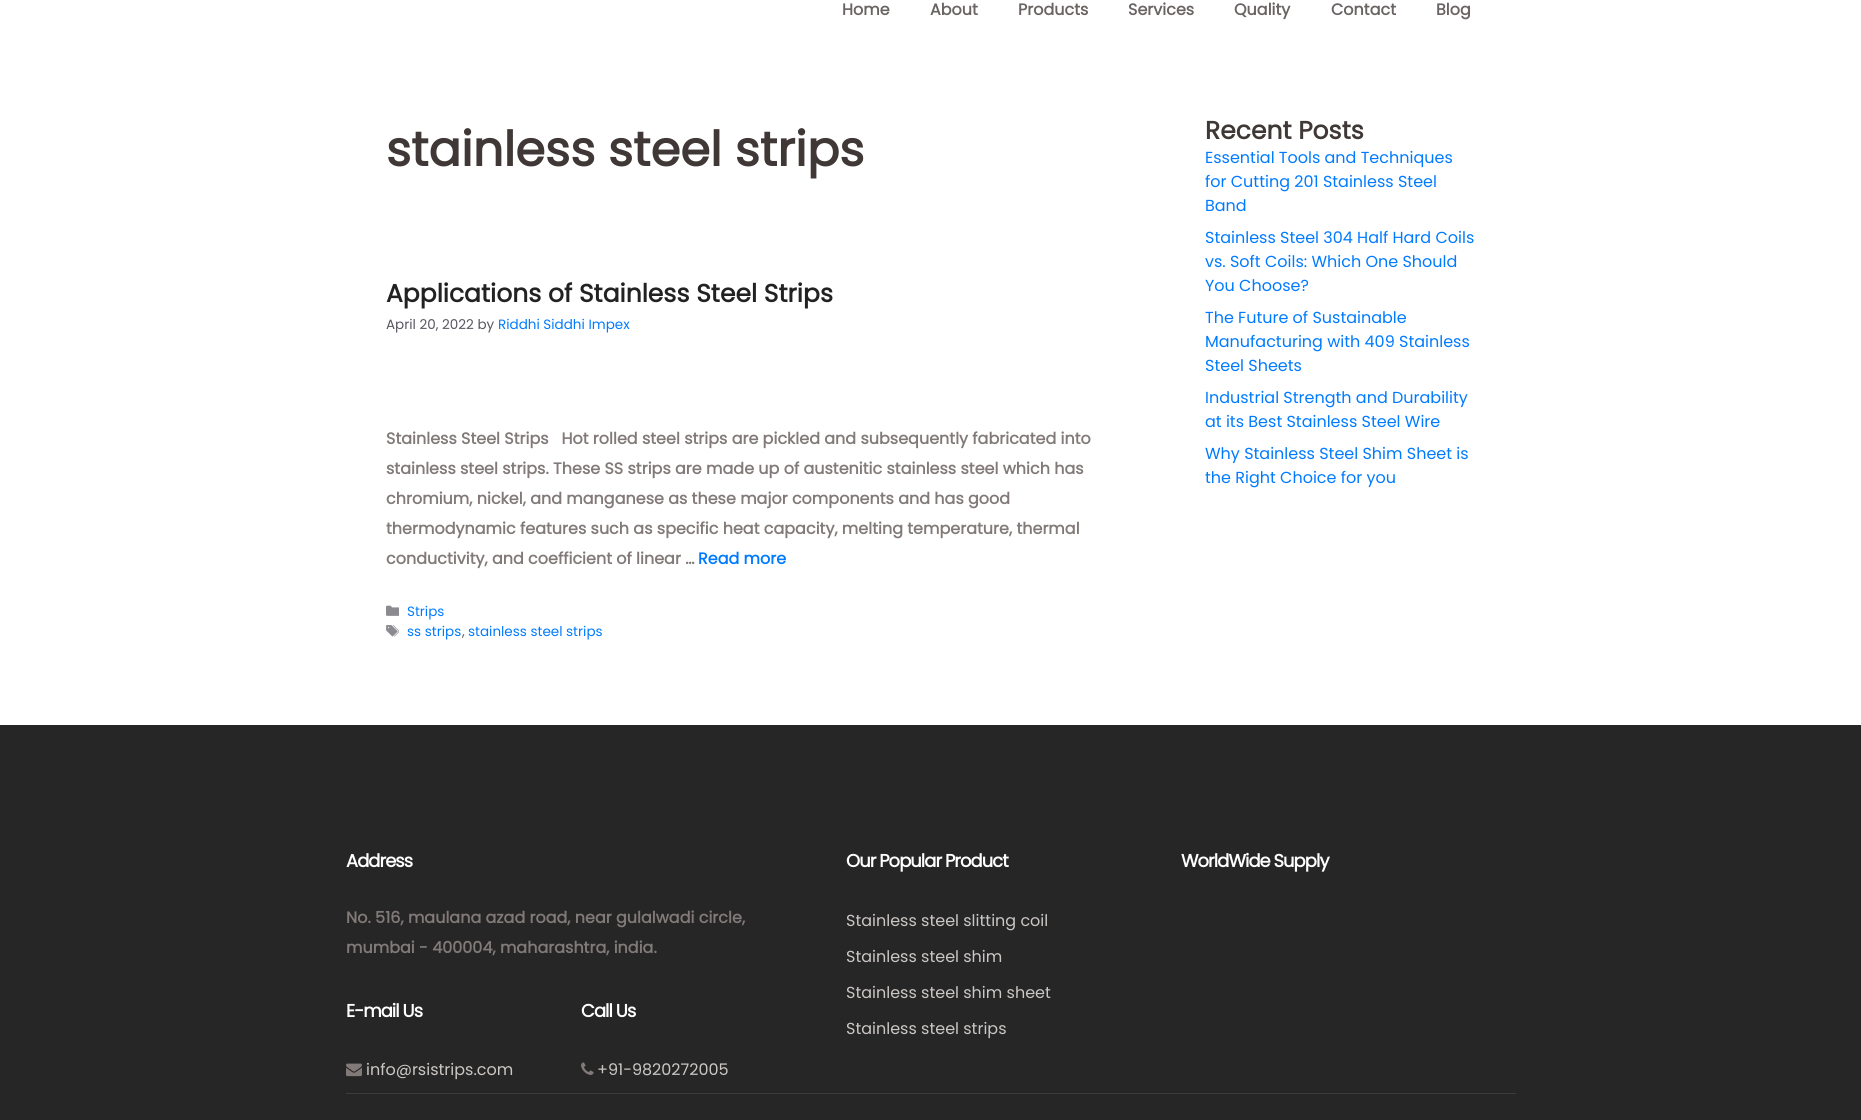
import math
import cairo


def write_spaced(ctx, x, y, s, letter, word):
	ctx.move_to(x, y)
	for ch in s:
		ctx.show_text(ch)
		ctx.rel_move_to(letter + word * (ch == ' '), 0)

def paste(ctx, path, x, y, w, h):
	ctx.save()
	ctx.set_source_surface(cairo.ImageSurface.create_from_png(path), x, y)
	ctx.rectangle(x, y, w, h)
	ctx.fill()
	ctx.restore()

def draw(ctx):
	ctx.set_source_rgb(1, 1, 1)
	ctx.paint()
	ctx.select_font_face('Poppins', cairo.FONT_SLANT_NORMAL, cairo.FONT_WEIGHT_BOLD)
	ctx.set_font_size(16)
	ctx.set_source_rgb(0.412, 0.388, 0.384)
	for x, y, s in [
		(842, 15, 'Home'),
		(930, 15, 'About'),
		(1018, 15, 'Products'),
		(1128, 15, 'Services'),
		(1234, 15, 'Quality'),
		(1331, 15, 'Contact'),
		(1436, 15, 'Blog'),
	]:
		ctx.move_to(x, y)
		ctx.show_text(s)
	ctx.set_font_size(48)
	ctx.set_source_rgb(0.247, 0.22, 0.212)
	ctx.move_to(386, 166)
	ctx.show_text('stainless steel strips')
	ctx.set_font_size(25)
	ctx.set_source_rgb(0.133, 0.133, 0.133)
	ctx.move_to(386, 302)
	ctx.show_text('Applications of Stainless Steel Strips')
	ctx.select_font_face('Poppins')
	ctx.set_font_size(13.5)
	ctx.set_source_rgb(0.341, 0.341, 0.376)
	ctx.move_to(386, 329)
	ctx.show_text('April 20, 2022 by')
	ctx.set_source_rgb(0, 0.482, 1)
	ctx.move_to(498, 329)
	ctx.show_text('Riddhi Siddhi Impex')
	ctx.select_font_face('Poppins', cairo.FONT_SLANT_NORMAL, cairo.FONT_WEIGHT_BOLD)
	ctx.set_font_size(16)
	ctx.set_source_rgb(0.506, 0.478, 0.471)
	for x, y, s in [
		(386, 444, 'Stainless Steel Strips   Hot rolled steel strips are pickled and subsequently fabricated into'),
		(386, 474, 'stainless steel strips. These SS strips are made up of austenitic stainless steel which has'),
		(386, 504, 'chromium, nickel, and manganese as these major components and has good'),
		(386, 534, 'thermodynamic features such as specific heat capacity, melting temperature, thermal'),
		(386, 564, 'conductivity, and coefficient of linear …'),
	]:
		ctx.move_to(x, y)
		ctx.show_text(s)
	ctx.set_source_rgb(0, 0.482, 1)
	ctx.move_to(698, 564)
	ctx.show_text('Read more')
	paste(ctx, 'media/1.png', 386, 605, 13, 11)
	ctx.select_font_face('Poppins')
	ctx.set_font_size(13.5)
	ctx.move_to(407, 616)
	ctx.show_text('Strips')
	paste(ctx, 'media/2.png', 386, 625, 13, 12)
	ctx.move_to(407, 636)
	ctx.show_text('ss strips')
	ctx.set_source_rgb(0.341, 0.341, 0.376)
	ctx.move_to(462, 636)
	ctx.show_text(',')
	ctx.set_source_rgb(0, 0.482, 1)
	ctx.move_to(468, 636)
	ctx.show_text('stainless steel strips')
	ctx.select_font_face('Poppins', cairo.FONT_SLANT_NORMAL, cairo.FONT_WEIGHT_BOLD)
	ctx.set_font_size(25)
	ctx.set_source_rgb(0.247, 0.22, 0.212)
	ctx.move_to(1205, 139)
	ctx.show_text('Recent Posts')
	ctx.select_font_face('Poppins')
	ctx.set_font_size(16)
	ctx.set_source_rgb(0, 0.482, 1)
	for x, y, s in [
		(1205, 163, 'Essential Tools and Techniques'),
		(1205, 187, 'for Cutting 201 Stainless Steel'),
		(1205, 211, 'Band'),
		(1205, 243, 'Stainless Steel 304 Half Hard Coils'),
		(1205, 267, 'vs. Soft Coils: Which One Should'),
		(1205, 291, 'You Choose?'),
		(1205, 323, 'The Future of Sustainable'),
		(1205, 347, 'Manufacturing with 409 Stainless'),
		(1205, 371, 'Steel Sheets'),
		(1205, 403, 'Industrial Strength and Durability'),
		(1205, 427, 'at its Best Stainless Steel Wire'),
		(1205, 459, 'Why Stainless Steel Shim Sheet is'),
		(1205, 483, 'the Right Choice for you'),
	]:
		ctx.move_to(x, y)
		ctx.show_text(s)
	ctx.set_source_rgb(0.149, 0.149, 0.149)
	ctx.rectangle(0, 725, 1861, 395)
	ctx.fill()
	ctx.select_font_face('Poppins', cairo.FONT_SLANT_NORMAL, cairo.FONT_WEIGHT_BOLD)
	ctx.set_font_size(18)
	ctx.set_source_rgb(1, 1, 1)
	write_spaced(ctx, 346, 867, 'Address', -1, 0)
	ctx.set_font_size(16)
	ctx.set_source_rgb(0.506, 0.478, 0.471)
	ctx.move_to(346, 923)
	ctx.show_text('No. 516, maulana azad road, near gulalwadi circle,')
	ctx.move_to(346, 953)
	ctx.show_text('mumbai - 400004, maharashtra, india.')
	ctx.set_font_size(18)
	ctx.set_source_rgb(1, 1, 1)
	write_spaced(ctx, 346, 1017, 'E-mail Us', -1, 0)
	paste(ctx, 'media/3.png', 346, 1063, 16, 14)
	ctx.select_font_face('Poppins')
	ctx.set_font_size(16)
	ctx.set_source_rgb(0.796, 0.78, 0.773)
	ctx.move_to(366, 1075)
	ctx.show_text('info@rsistrips.com')
	ctx.select_font_face('Poppins', cairo.FONT_SLANT_NORMAL, cairo.FONT_WEIGHT_BOLD)
	ctx.set_font_size(18)
	ctx.set_source_rgb(1, 1, 1)
	write_spaced(ctx, 581, 1017, 'Call Us', -1, 0)
	paste(ctx, 'media/4.png', 581, 1062, 13, 13)
	ctx.select_font_face('Poppins')
	ctx.set_font_size(16)
	ctx.set_source_rgb(0.796, 0.78, 0.773)
	ctx.move_to(597, 1075)
	ctx.show_text('+91-9820272005')
	ctx.select_font_face('Poppins', cairo.FONT_SLANT_NORMAL, cairo.FONT_WEIGHT_BOLD)
	ctx.set_font_size(18)
	ctx.set_source_rgb(1, 1, 1)
	write_spaced(ctx, 846, 867, 'Our Popular Product', -1, 0)
	ctx.select_font_face('Poppins')
	ctx.set_font_size(16)
	ctx.set_source_rgb(0.796, 0.78, 0.773)
	for x, y, s in [
		(846, 926, 'Stainless steel slitting coil'),
		(846, 962, 'Stainless steel shim'),
		(846, 998, 'Stainless steel shim sheet'),
		(846, 1034, 'Stainless steel strips'),
	]:
		ctx.move_to(x, y)
		ctx.show_text(s)
	ctx.select_font_face('Poppins', cairo.FONT_SLANT_NORMAL, cairo.FONT_WEIGHT_BOLD)
	ctx.set_font_size(18)
	ctx.set_source_rgb(1, 1, 1)
	write_spaced(ctx, 1181, 867, 'WorldWide Supply', -1, 0)
	ctx.set_source_rgb(0.235, 0.235, 0.235)
	ctx.rectangle(346, 1093, 1170, 1)
	ctx.fill()


surface = cairo.ImageSurface(cairo.FORMAT_RGB24, 1861, 1120)
ctx = cairo.Context(surface)
options = cairo.FontOptions()
options.set_hint_metrics(cairo.HINT_METRICS_OFF)
options.set_hint_style(cairo.HINT_STYLE_NONE)
ctx.set_font_options(options)
ctx.set_miter_limit(4)
draw(ctx)
surface.write_to_png('image.png')
